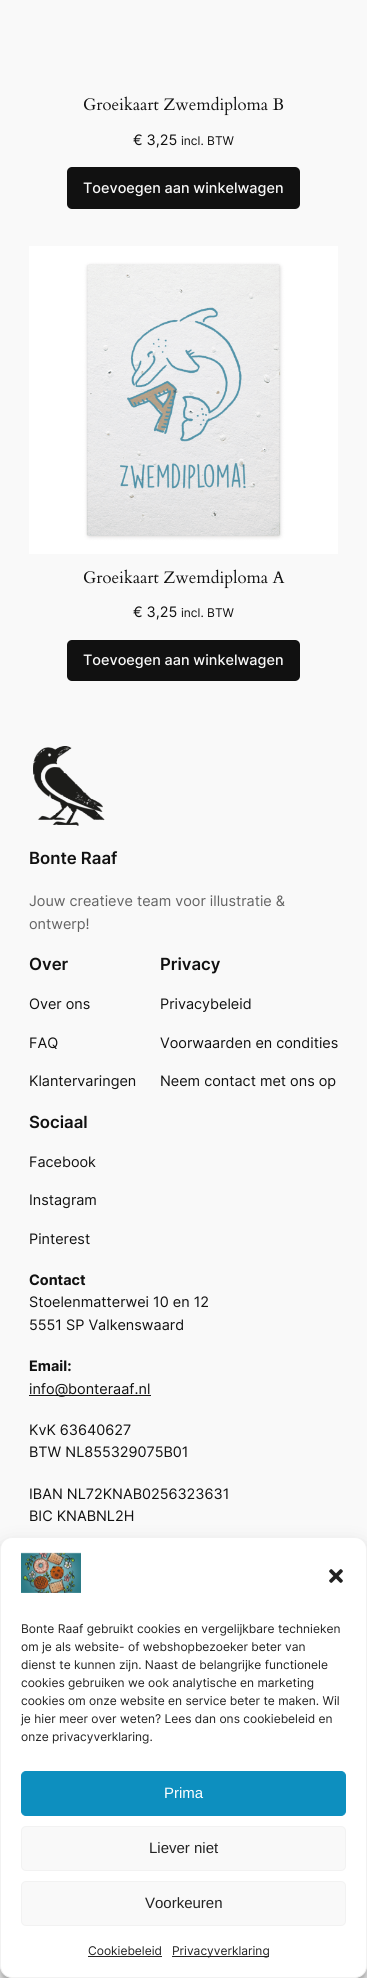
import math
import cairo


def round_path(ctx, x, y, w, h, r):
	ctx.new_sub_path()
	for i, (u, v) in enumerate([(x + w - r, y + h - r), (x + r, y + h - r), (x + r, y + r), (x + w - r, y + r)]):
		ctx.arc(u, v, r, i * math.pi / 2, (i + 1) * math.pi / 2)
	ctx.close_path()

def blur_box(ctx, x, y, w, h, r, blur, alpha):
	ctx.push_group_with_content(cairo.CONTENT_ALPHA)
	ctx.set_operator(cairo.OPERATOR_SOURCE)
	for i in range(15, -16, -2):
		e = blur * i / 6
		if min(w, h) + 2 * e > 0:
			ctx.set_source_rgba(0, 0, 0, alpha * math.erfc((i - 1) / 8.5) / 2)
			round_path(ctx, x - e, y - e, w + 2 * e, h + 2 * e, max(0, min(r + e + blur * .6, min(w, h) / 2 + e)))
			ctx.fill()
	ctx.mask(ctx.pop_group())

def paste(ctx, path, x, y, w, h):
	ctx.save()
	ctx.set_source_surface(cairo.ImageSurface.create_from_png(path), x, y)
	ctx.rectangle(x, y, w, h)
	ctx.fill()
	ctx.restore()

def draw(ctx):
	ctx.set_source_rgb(0.976, 0.976, 0.976)
	ctx.paint()
	paste(ctx, 'media/1.png', 83, 96, 201, 20)
	ctx.select_font_face('Inter')
	ctx.set_font_size(14.4)
	ctx.set_source_rgb(0.067, 0.067, 0.067)
	ctx.move_to(133, 145)
	ctx.show_text('€ 3,25')
	ctx.set_font_size(12)
	ctx.move_to(181, 145)
	ctx.show_text('incl. BTW')
	round_path(ctx, 67, 167, 233, 42, 5)
	ctx.fill()
	ctx.select_font_face('Inter Medium')
	ctx.set_font_size(14.4)
	ctx.set_source_rgb(0.976, 0.976, 0.976)
	ctx.move_to(83, 193)
	ctx.show_text('Toevoegen aan winkelwagen')
	paste(ctx, 'media/2.png', 29, 246, 309, 308)
	paste(ctx, 'media/3.png', 83, 569, 202, 20)
	ctx.select_font_face('Inter')
	ctx.set_source_rgb(0.067, 0.067, 0.067)
	ctx.move_to(133, 617)
	ctx.show_text('€ 3,25')
	ctx.set_font_size(12)
	ctx.move_to(181, 617)
	ctx.show_text('incl. BTW')
	round_path(ctx, 67, 640, 233, 41, 5)
	ctx.fill()
	ctx.select_font_face('Inter Medium')
	ctx.set_font_size(14.4)
	ctx.set_source_rgb(0.976, 0.976, 0.976)
	ctx.move_to(83, 665)
	ctx.show_text('Toevoegen aan winkelwagen')
	paste(ctx, 'media/4.png', 33, 746, 72, 80)
	ctx.select_font_face('Inter SemiBold')
	ctx.set_font_size(16.75)
	ctx.set_source_rgb(0.067, 0.067, 0.067)
	ctx.move_to(29, 864)
	ctx.show_text('Bonte Raaf')
	ctx.select_font_face('Inter')
	ctx.set_font_size(14.4)
	ctx.set_source_rgb(0.388, 0.388, 0.388)
	ctx.move_to(29, 906)
	ctx.show_text('Jouw creatieve team voor illustratie &')
	ctx.move_to(29, 929)
	ctx.show_text('ontwerp!')
	ctx.select_font_face('Inter SemiBold')
	ctx.set_font_size(16.75)
	ctx.set_source_rgb(0.067, 0.067, 0.067)
	ctx.move_to(29, 970)
	ctx.show_text('Over')
	ctx.select_font_face('Inter')
	ctx.set_font_size(14.4)
	for x, y, s in [
		(29, 1009, 'Over ons'),
		(29, 1048, 'FAQ'),
		(29, 1086, 'Klantervaringen'),
	]:
		ctx.move_to(x, y)
		ctx.show_text(s)
	ctx.select_font_face('Inter SemiBold')
	ctx.set_font_size(16.75)
	ctx.move_to(160, 970)
	ctx.show_text('Privacy')
	ctx.select_font_face('Inter')
	ctx.set_font_size(14.4)
	for x, y, s in [
		(160, 1009, 'Privacybeleid'),
		(160, 1048, 'Voorwaarden en condities'),
		(160, 1086, 'Neem contact met ons op'),
	]:
		ctx.move_to(x, y)
		ctx.show_text(s)
	ctx.select_font_face('Inter SemiBold')
	ctx.set_font_size(16.75)
	ctx.move_to(29, 1128)
	ctx.show_text('Sociaal')
	ctx.select_font_face('Inter')
	ctx.set_font_size(14.4)
	for x, y, s in [
		(29, 1167, 'Facebook'),
		(29, 1205, 'Instagram'),
		(29, 1244, 'Pinterest'),
	]:
		ctx.move_to(x, y)
		ctx.show_text(s)
	ctx.select_font_face('Inter', cairo.FONT_SLANT_NORMAL, cairo.FONT_WEIGHT_BOLD)
	ctx.move_to(29, 1285)
	ctx.show_text('Contact')
	ctx.select_font_face('Inter')
	ctx.move_to(29, 1307)
	ctx.show_text('Stoelenmatterwei 10 en 12')
	ctx.move_to(29, 1330)
	ctx.show_text('5551 SP Valkenswaard')
	ctx.select_font_face('Inter', cairo.FONT_SLANT_NORMAL, cairo.FONT_WEIGHT_BOLD)
	ctx.move_to(29, 1371)
	ctx.show_text('Email:')
	ctx.rectangle(29, 1395, 122, 1)
	ctx.fill()
	ctx.select_font_face('Inter')
	for x, y, s in [
		(29, 1394, 'info@bonteraaf.nl'),
		(29, 1435, 'KvK 63640627'),
		(29, 1457, 'BTW NL855329075B01'),
		(29, 1499, 'IBAN NL72KNAB0256323631'),
		(29, 1521, 'BIC KNABNL2H'),
	]:
		ctx.move_to(x, y)
		ctx.show_text(s)
	ctx.set_source_rgb(0, 0, 0)
	blur_box(ctx, 0, 1543, 367, 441, 12, 3, 0.23)
	blur_box(ctx, 0, 1547, 367, 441, 12, 10, 0.19)
	ctx.set_source_rgb(1, 1, 1)
	round_path(ctx, 0.5, 1537.5, 366, 440, 11.5)
	ctx.fill_preserve()
	ctx.set_source_rgb(0.949, 0.949, 0.949)
	ctx.set_line_width(1)
	ctx.stroke()
	paste(ctx, 'media/5.png', 21, 1552, 60, 41)
	paste(ctx, 'media/6.png', 329, 1569, 14, 14)
	ctx.set_font_size(12)
	ctx.set_source_rgb(0.133, 0.133, 0.133)
	for x, y, s in [
		(21, 1633, 'Bonte Raaf gebruikt cookies en vergelijkbare technieken'),
		(21, 1651, 'om je als website- of webshopbezoeker beter van'),
		(21, 1669, 'dienst te kunnen zijn. Naast de belangrijke functionele'),
		(21, 1687, 'cookies gebruiken we ook analytische en marketing'),
		(21, 1705, 'cookies om onze website en service beter te maken. Wil'),
		(21, 1723, 'je hier meer over weten? Lees dan ons cookiebeleid en'),
		(21, 1741, 'onze privacyverklaring.'),
	]:
		ctx.move_to(x, y)
		ctx.show_text(s)
	ctx.set_source_rgb(0.051, 0.561, 0.749)
	round_path(ctx, 21.5, 1771.5, 324, 44, 4.5)
	ctx.fill_preserve()
	ctx.stroke()
	ctx.select_font_face('Liberation Sans')
	ctx.set_font_size(15)
	ctx.set_source_rgb(1, 1, 1)
	ctx.move_to(164, 1798)
	ctx.show_text('Prima')
	ctx.set_source_rgb(0.976, 0.976, 0.976)
	round_path(ctx, 21.5, 1826.5, 324, 44, 4.5)
	ctx.fill_preserve()
	ctx.set_source_rgb(0.949, 0.949, 0.949)
	ctx.stroke()
	ctx.set_source_rgb(0.133, 0.133, 0.133)
	ctx.move_to(149, 1853)
	ctx.show_text('Liever niet')
	ctx.set_source_rgb(0.976, 0.976, 0.976)
	round_path(ctx, 21.5, 1881.5, 324, 44, 4.5)
	ctx.fill_preserve()
	ctx.set_source_rgb(0.949, 0.949, 0.949)
	ctx.stroke()
	ctx.set_source_rgb(0.133, 0.133, 0.133)
	ctx.move_to(145, 1908)
	ctx.show_text('Voorkeuren')
	ctx.select_font_face('Inter')
	ctx.set_font_size(12)
	ctx.move_to(88, 1955)
	ctx.show_text('Cookiebeleid')
	ctx.rectangle(88, 1956, 74, 1)
	ctx.fill()
	ctx.rectangle(172, 1956, 97, 1)
	ctx.fill()
	ctx.move_to(172, 1955)
	ctx.show_text('Privacyverklaring')


surface = cairo.ImageSurface(cairo.FORMAT_RGB24, 367, 1978)
ctx = cairo.Context(surface)
options = cairo.FontOptions()
options.set_hint_metrics(cairo.HINT_METRICS_OFF)
options.set_hint_style(cairo.HINT_STYLE_NONE)
ctx.set_font_options(options)
ctx.set_miter_limit(4)
draw(ctx)
surface.write_to_png('image.png')
